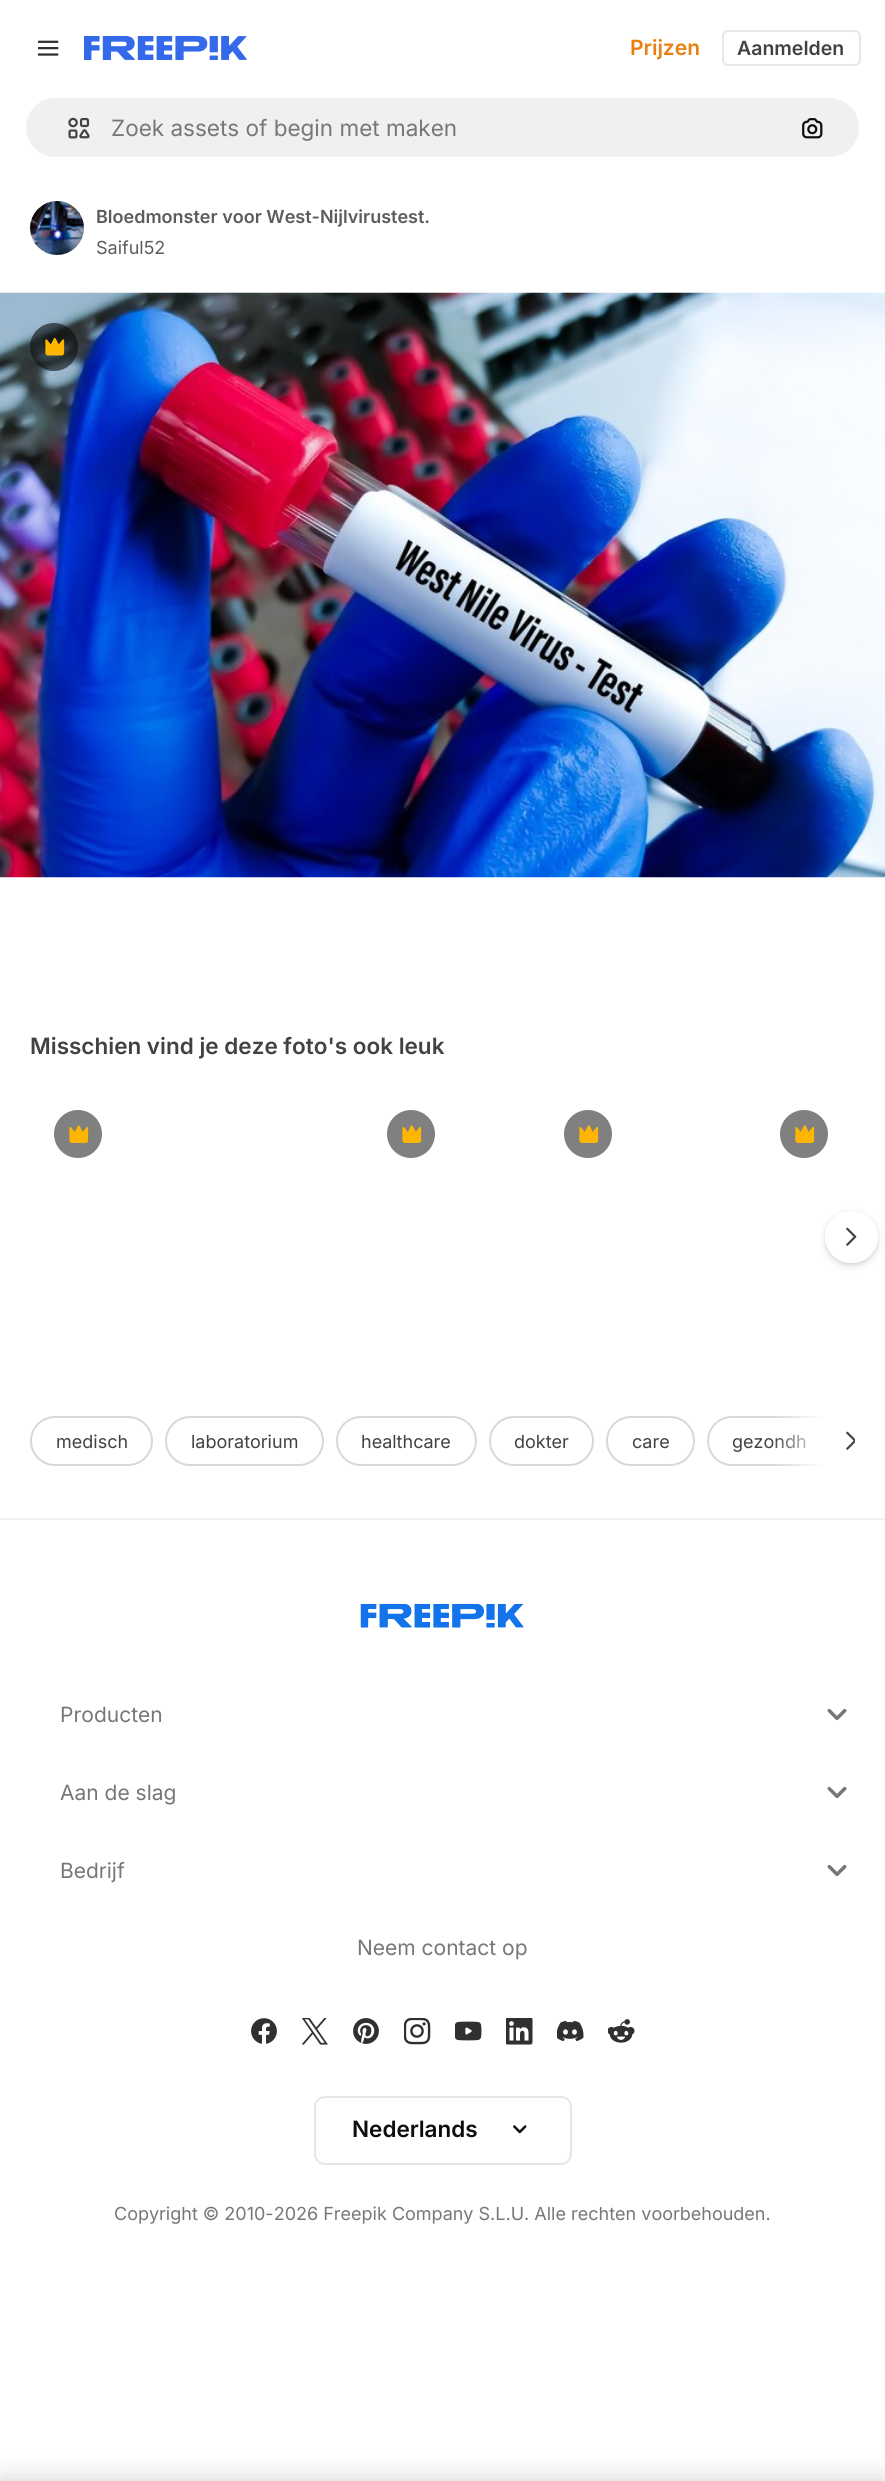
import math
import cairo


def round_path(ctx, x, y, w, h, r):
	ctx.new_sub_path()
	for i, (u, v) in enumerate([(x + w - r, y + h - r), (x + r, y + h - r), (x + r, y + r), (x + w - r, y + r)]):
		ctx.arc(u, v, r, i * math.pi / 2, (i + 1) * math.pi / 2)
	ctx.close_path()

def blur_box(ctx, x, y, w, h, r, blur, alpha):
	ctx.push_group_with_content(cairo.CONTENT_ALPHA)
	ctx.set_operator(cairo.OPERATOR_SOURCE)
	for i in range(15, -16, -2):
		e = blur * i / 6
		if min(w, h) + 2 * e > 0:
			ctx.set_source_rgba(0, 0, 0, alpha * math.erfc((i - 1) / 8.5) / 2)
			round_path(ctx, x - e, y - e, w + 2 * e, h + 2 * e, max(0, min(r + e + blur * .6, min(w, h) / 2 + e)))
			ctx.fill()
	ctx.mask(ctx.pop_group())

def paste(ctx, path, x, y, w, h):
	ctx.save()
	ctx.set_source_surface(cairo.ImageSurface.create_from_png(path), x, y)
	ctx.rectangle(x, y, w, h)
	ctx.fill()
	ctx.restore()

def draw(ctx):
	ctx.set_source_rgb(1, 1, 1)
	ctx.paint()
	paste(ctx, 'media/1.png', 38, 40, 21, 16)
	paste(ctx, 'media/2.png', 84, 36, 163, 24)
	ctx.select_font_face('Inter SemiBold')
	ctx.set_font_size(21)
	ctx.set_source_rgb(0.918, 0.494, 0.067)
	ctx.move_to(630, 55)
	ctx.show_text('Prijzen')
	round_path(ctx, 723, 31, 137, 34, 5)
	ctx.set_source_rgb(0.906, 0.906, 0.906)
	ctx.stroke()
	ctx.set_font_size(19.5)
	ctx.set_source_rgb(0.259, 0.259, 0.259)
	ctx.move_to(737, 55)
	ctx.show_text('Aanmelden')
	ctx.set_source_rgb(0.941, 0.941, 0.941)
	round_path(ctx, 25, 97, 835, 61, 30.5)
	ctx.fill_preserve()
	ctx.set_source_rgb(1, 1, 1)
	ctx.stroke()
	paste(ctx, 'media/3.png', 68, 117, 22, 22)
	ctx.select_font_face('Inter')
	ctx.set_font_size(22.5)
	ctx.set_source_rgb(0.467, 0.467, 0.467)
	ctx.move_to(111, 136)
	ctx.show_text('Zoek assets of begin met maken')
	paste(ctx, 'media/4.png', 802, 118, 21, 21)
	paste(ctx, 'media/5.png', 30, 201, 54, 54)
	ctx.select_font_face('Inter SemiBold')
	ctx.set_font_size(18)
	ctx.set_source_rgb(0.361, 0.361, 0.361)
	ctx.move_to(96, 223)
	ctx.show_text('Bloedmonster voor West-Nijlvirustest.')
	ctx.select_font_face('Inter')
	ctx.move_to(96, 254)
	ctx.show_text('Saiful52')
	paste(ctx, 'media/6.png', 0, 292, 885, 586)
	ctx.set_source_rgba(0.051, 0.051, 0.051, 0.6)
	ctx.arc(54, 347, 24, 0, 2 * math.pi)
	ctx.fill()
	paste(ctx, 'media/7.png', 45, 338, 20, 18)
	ctx.select_font_face('Inter SemiBold')
	ctx.set_font_size(22.5)
	ctx.set_source_rgb(0.259, 0.259, 0.259)
	ctx.move_to(30, 1054)
	ctx.show_text('Misschien vind je deze foto\'s ook leuk')
	ctx.set_source_rgb(0.502, 0.502, 0.502)
	ctx.new_path()
	ctx.arc(78, 1134, 24, 0, 2 * math.pi)
	ctx.fill()
	paste(ctx, 'media/8.png', 69, 1125, 20, 18)
	ctx.arc(411, 1134, 24, 0, 2 * math.pi)
	ctx.fill()
	paste(ctx, 'media/8.png', 402, 1125, 20, 18)
	ctx.arc(588, 1134, 24, 0, 2 * math.pi)
	ctx.fill()
	paste(ctx, 'media/8.png', 579, 1125, 20, 18)
	ctx.arc(804, 1134, 24, 0, 2 * math.pi)
	ctx.fill()
	paste(ctx, 'media/8.png', 795, 1125, 20, 18)
	ctx.set_source_rgb(0.216, 0.286, 0.341)
	blur_box(ctx, 825, 1214, 53, 52, 26, 4, 0.15)
	blur_box(ctx, 825, 1212, 53, 53, 26.5, 1.5, 0.1)
	ctx.set_source_rgb(1, 1, 1)
	round_path(ctx, 825, 1211, 53, 52, 26)
	ctx.fill()
	paste(ctx, 'media/9.png', 846, 1227, 11, 19)
	round_path(ctx, 31, 1417, 121, 48, 24)
	ctx.set_source_rgb(0.847, 0.847, 0.847)
	ctx.stroke()
	ctx.select_font_face('Inter')
	ctx.set_font_size(18)
	ctx.set_source_rgb(0.259, 0.259, 0.259)
	ctx.move_to(56, 1448)
	ctx.show_text('medisch')
	round_path(ctx, 166, 1417, 157, 48, 24)
	ctx.set_source_rgb(0.847, 0.847, 0.847)
	ctx.stroke()
	ctx.set_source_rgb(0.259, 0.259, 0.259)
	ctx.move_to(191, 1448)
	ctx.show_text('laboratorium')
	round_path(ctx, 337, 1417, 139, 48, 24)
	ctx.set_source_rgb(0.847, 0.847, 0.847)
	ctx.stroke()
	ctx.set_source_rgb(0.259, 0.259, 0.259)
	ctx.move_to(361, 1448)
	ctx.show_text('healthcare')
	round_path(ctx, 490, 1417, 103, 48, 24)
	ctx.set_source_rgb(0.847, 0.847, 0.847)
	ctx.stroke()
	ctx.set_source_rgb(0.259, 0.259, 0.259)
	ctx.move_to(514, 1448)
	ctx.show_text('dokter')
	round_path(ctx, 607, 1417, 87, 48, 24)
	ctx.set_source_rgb(0.847, 0.847, 0.847)
	ctx.stroke()
	ctx.set_source_rgb(0.259, 0.259, 0.259)
	ctx.move_to(632, 1448)
	ctx.show_text('care')
	ctx.save()
	ctx.rectangle(30, 1416, 825, 50)
	ctx.clip()
	round_path(ctx, 708, 1417, 149, 48, 24)
	ctx.set_source_rgb(0.847, 0.847, 0.847)
	ctx.stroke()
	ctx.restore()
	ctx.move_to(732, 1448)
	ctx.show_text('gezondh')
	ctx.set_source_rgb(1, 1, 1)
	ctx.rectangle(825, 1416, 30, 50)
	ctx.fill()
	gradient = cairo.LinearGradient(825, 1441, 773, 1441)
	gradient.add_color_stop_rgba(0, 1, 1, 1, 1)
	gradient.add_color_stop_rgba(1, 1, 1, 1, 0)
	ctx.set_source(gradient)
	ctx.rectangle(776, 1416, 49, 50)
	ctx.fill()
	paste(ctx, 'media/10.png', 846, 1431, 9, 19)
	ctx.set_source_rgb(0.941, 0.941, 0.941)
	ctx.rectangle(0, 1518, 885, 2)
	ctx.fill()
	paste(ctx, 'media/11.png', 360, 1604, 164, 24)
	ctx.set_font_size(21)
	ctx.set_source_rgb(0.467, 0.467, 0.467)
	ctx.move_to(60, 1722)
	ctx.show_text('Producten')
	paste(ctx, 'media/12.png', 827, 1708, 20, 13)
	ctx.move_to(60, 1800)
	ctx.show_text('Aan de slag')
	paste(ctx, 'media/12.png', 827, 1786, 20, 13)
	ctx.move_to(60, 1878)
	ctx.show_text('Bedrijf')
	paste(ctx, 'media/12.png', 827, 1864, 20, 13)
	ctx.move_to(357, 1955)
	ctx.show_text('Neem contact op')
	paste(ctx, 'media/13.png', 251, 2018, 26, 26)
	paste(ctx, 'media/14.png', 302, 2018, 26, 27)
	paste(ctx, 'media/15.png', 353, 2018, 26, 26)
	paste(ctx, 'media/16.png', 404, 2018, 27, 27)
	paste(ctx, 'media/17.png', 455, 2021, 27, 20)
	paste(ctx, 'media/18.png', 506, 2018, 27, 27)
	paste(ctx, 'media/19.png', 557, 2020, 27, 22)
	paste(ctx, 'media/20.png', 608, 2019, 27, 24)
	round_path(ctx, 315, 2097, 256, 67, 10)
	ctx.set_source_rgb(0.902, 0.902, 0.902)
	ctx.stroke()
	ctx.select_font_face('Inter SemiBold')
	ctx.set_font_size(22.5)
	ctx.set_source_rgb(0.051, 0.051, 0.051)
	ctx.move_to(352, 2137)
	ctx.show_text('Nederlands')
	paste(ctx, 'media/21.png', 513, 2125, 14, 9)
	ctx.select_font_face('Inter')
	ctx.set_font_size(18)
	ctx.set_source_rgb(0.467, 0.467, 0.467)
	ctx.move_to(114, 2220)
	ctx.show_text('Copyright © 2010-2026 Freepik Company S.L.U. Alle rechten voorbehouden.')
	ctx.set_source_rgb(0, 0, 0)
	blur_box(ctx, 0, 2481, 885, 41, 0, 13.5, 0.2)


surface = cairo.ImageSurface(cairo.FORMAT_RGB24, 885, 2481)
ctx = cairo.Context(surface)
options = cairo.FontOptions()
options.set_hint_metrics(cairo.HINT_METRICS_OFF)
options.set_hint_style(cairo.HINT_STYLE_NONE)
ctx.set_font_options(options)
ctx.set_miter_limit(4)
draw(ctx)
surface.write_to_png('image.png')
